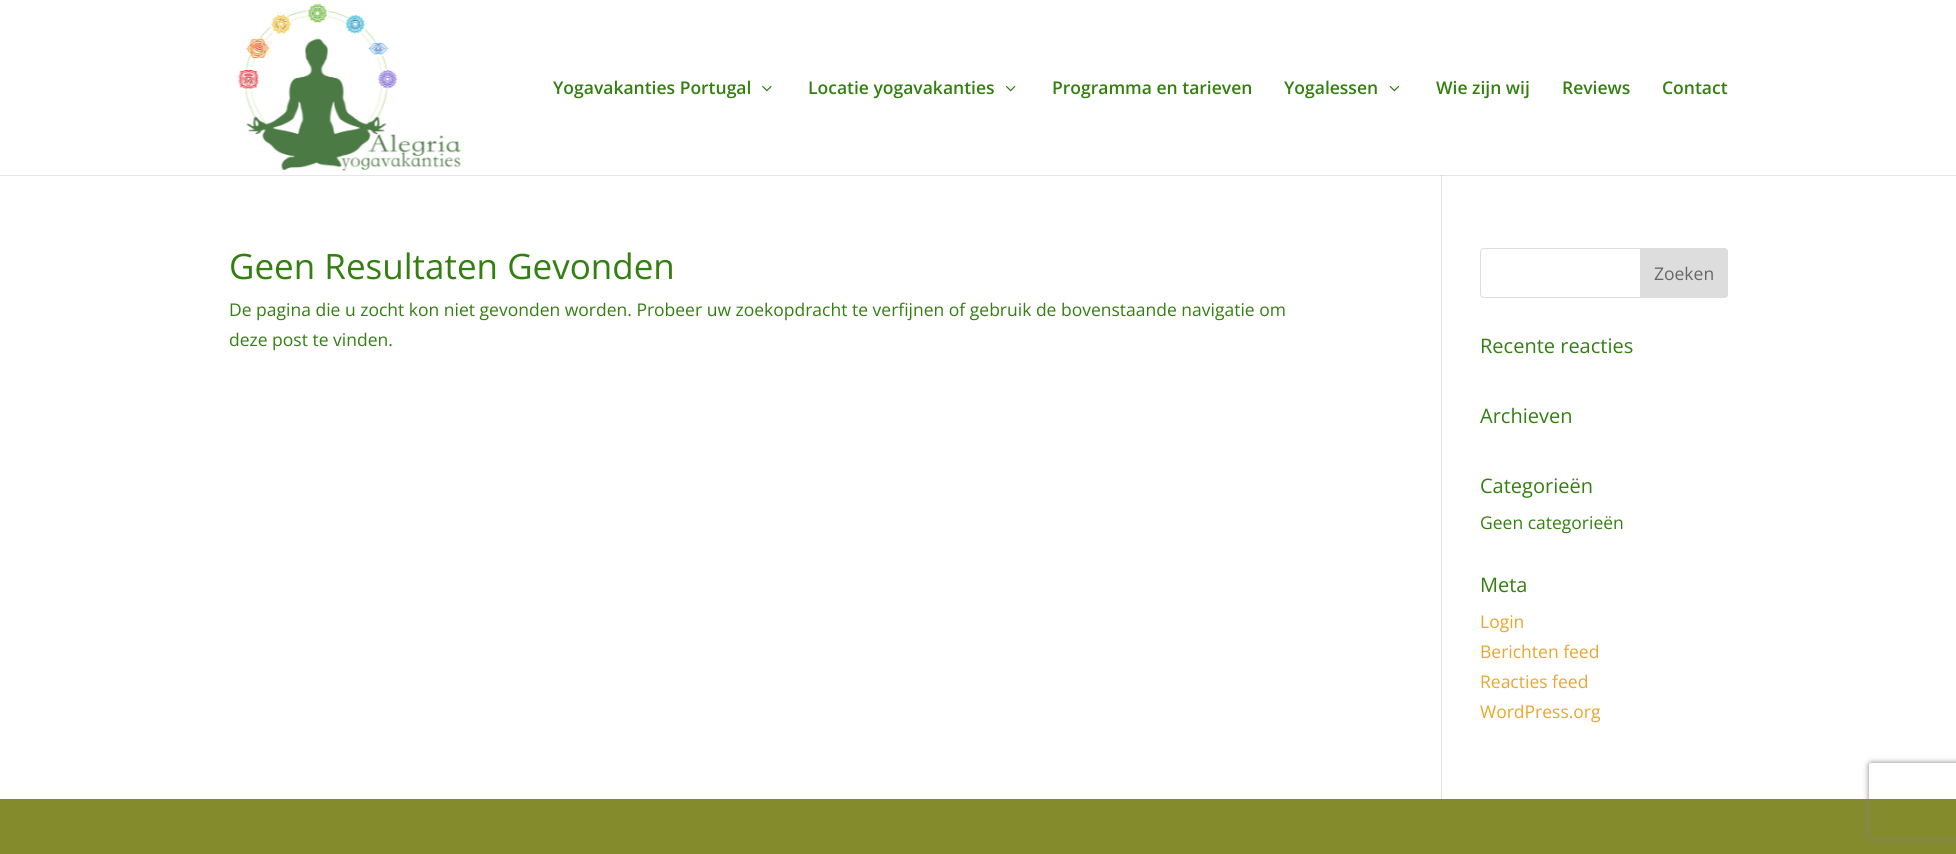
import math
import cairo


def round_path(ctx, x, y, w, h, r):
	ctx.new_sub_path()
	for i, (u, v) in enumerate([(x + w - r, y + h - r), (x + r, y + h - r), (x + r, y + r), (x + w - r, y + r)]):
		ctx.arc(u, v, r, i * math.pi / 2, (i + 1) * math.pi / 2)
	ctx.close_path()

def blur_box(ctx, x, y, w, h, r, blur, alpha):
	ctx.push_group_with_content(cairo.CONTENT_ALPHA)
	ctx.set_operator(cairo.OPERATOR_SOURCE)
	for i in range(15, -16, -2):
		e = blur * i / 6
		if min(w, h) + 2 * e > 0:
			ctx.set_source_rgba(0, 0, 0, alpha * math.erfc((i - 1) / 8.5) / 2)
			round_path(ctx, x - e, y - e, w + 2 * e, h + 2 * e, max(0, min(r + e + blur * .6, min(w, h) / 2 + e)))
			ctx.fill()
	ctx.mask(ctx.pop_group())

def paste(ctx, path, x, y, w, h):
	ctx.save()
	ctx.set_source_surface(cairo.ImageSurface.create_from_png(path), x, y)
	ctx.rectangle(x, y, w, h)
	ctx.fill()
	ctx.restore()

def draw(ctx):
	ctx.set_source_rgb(1, 1, 1)
	ctx.paint()
	paste(ctx, 'media/1.png', 238, 3, 223, 168)
	ctx.select_font_face('Open Sans SemiBold')
	ctx.set_font_size(17.5)
	ctx.set_source_rgb(0.2, 0.498, 0.063)
	ctx.move_to(553, 94)
	ctx.show_text('Yogavakanties Portugal')
	paste(ctx, 'media/2.png', 762, 86, 10, 6)
	ctx.move_to(808, 94)
	ctx.show_text('Locatie yogavakanties')
	paste(ctx, 'media/3.png', 1006, 86, 10, 6)
	ctx.move_to(1052, 94)
	ctx.show_text('Programma en tarieven')
	ctx.move_to(1284, 94)
	ctx.show_text('Yogalessen')
	paste(ctx, 'media/4.png', 1389, 86, 10, 6)
	for x, y, s in [
		(1436, 94, 'Wie zijn wij'),
		(1562, 94, 'Reviews'),
		(1662, 94, 'Contact'),
	]:
		ctx.move_to(x, y)
		ctx.show_text(s)
	ctx.set_source_rgb(0.902, 0.902, 0.902)
	ctx.rectangle(0, 175, 1956, 1)
	ctx.fill()
	ctx.set_source_rgb(0.886, 0.886, 0.886)
	ctx.rectangle(1441, 175, 1, 624)
	ctx.fill()
	ctx.set_source_rgb(0.796, 0.796, 0.796)
	ctx.rectangle(1441, 175, 1, 1)
	ctx.fill()
	ctx.select_font_face('Open Sans')
	ctx.set_font_size(35)
	ctx.set_source_rgb(0.2, 0.498, 0.063)
	ctx.move_to(229, 279)
	ctx.show_text('Geen Resultaten Gevonden')
	ctx.set_font_size(17.5)
	ctx.move_to(229, 316)
	ctx.show_text('De pagina die u zocht kon niet gevonden worden. Probeer uw zoekopdracht te verfijnen of gebruik de bovenstaande navigatie om')
	ctx.move_to(229, 346)
	ctx.show_text('deze post te vinden.')
	round_path(ctx, 1480.5, 248.5, 247, 49, 3.5)
	ctx.set_source_rgb(0.867, 0.867, 0.867)
	ctx.set_line_width(1)
	ctx.stroke()
	ctx.new_path()
	ctx.move_to(1640.5, 248.5)
	ctx.line_to(1724, 248.5)
	ctx.curve_to(1726, 248.5, 1727.5, 250, 1727.5, 252)
	ctx.line_to(1727.5, 294)
	ctx.curve_to(1727.5, 296, 1726, 297.5, 1724, 297.5)
	ctx.line_to(1640.5, 297.5)
	ctx.close_path()
	ctx.fill_preserve()
	ctx.stroke()
	ctx.set_source_rgb(0.4, 0.4, 0.4)
	ctx.move_to(1654, 280)
	ctx.show_text('Zoeken')
	ctx.set_font_size(20)
	ctx.set_source_rgb(0.2, 0.498, 0.063)
	for x, y, s in [
		(1480, 353, 'Recente reacties'),
		(1480, 423, 'Archieven'),
		(1480, 493, 'Categorieën'),
	]:
		ctx.move_to(x, y)
		ctx.show_text(s)
	ctx.set_font_size(17.5)
	ctx.move_to(1480, 529)
	ctx.show_text('Geen categorieën')
	ctx.set_font_size(20)
	ctx.move_to(1480, 592)
	ctx.show_text('Meta')
	ctx.set_font_size(17.5)
	ctx.set_source_rgb(0.91, 0.651, 0.173)
	for x, y, s in [
		(1480, 628, 'Login'),
		(1480, 658, 'Berichten feed'),
		(1480, 688, 'Reacties feed'),
		(1480, 718, 'WordPress.org'),
	]:
		ctx.move_to(x, y)
		ctx.show_text(s)
	ctx.set_source_rgb(0.518, 0.545, 0.176)
	ctx.rectangle(0, 799, 1956, 55)
	ctx.fill()
	ctx.save()
	ctx.set_fill_rule(cairo.FILL_RULE_EVEN_ODD)
	ctx.new_path()
	ctx.move_to(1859, 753)
	ctx.line_to(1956, 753)
	ctx.line_to(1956, 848)
	ctx.line_to(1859, 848)
	ctx.close_path()
	ctx.move_to(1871.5, 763)
	ctx.line_to(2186.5, 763)
	ctx.curve_to(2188, 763, 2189, 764, 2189, 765.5)
	ctx.line_to(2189, 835.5)
	ctx.curve_to(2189, 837, 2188, 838, 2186.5, 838)
	ctx.line_to(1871.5, 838)
	ctx.curve_to(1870, 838, 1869, 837, 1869, 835.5)
	ctx.line_to(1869, 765.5)
	ctx.curve_to(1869, 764, 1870, 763, 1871.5, 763)
	ctx.close_path()
	ctx.clip()
	ctx.set_source_rgb(0.502, 0.502, 0.502)
	blur_box(ctx, 1869, 763, 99, 75, 2.5, 3, 1)
	ctx.restore()


surface = cairo.ImageSurface(cairo.FORMAT_RGB24, 1956, 854)
ctx = cairo.Context(surface)
options = cairo.FontOptions()
options.set_hint_metrics(cairo.HINT_METRICS_OFF)
options.set_hint_style(cairo.HINT_STYLE_NONE)
ctx.set_font_options(options)
ctx.set_miter_limit(4)
draw(ctx)
surface.write_to_png('image.png')
